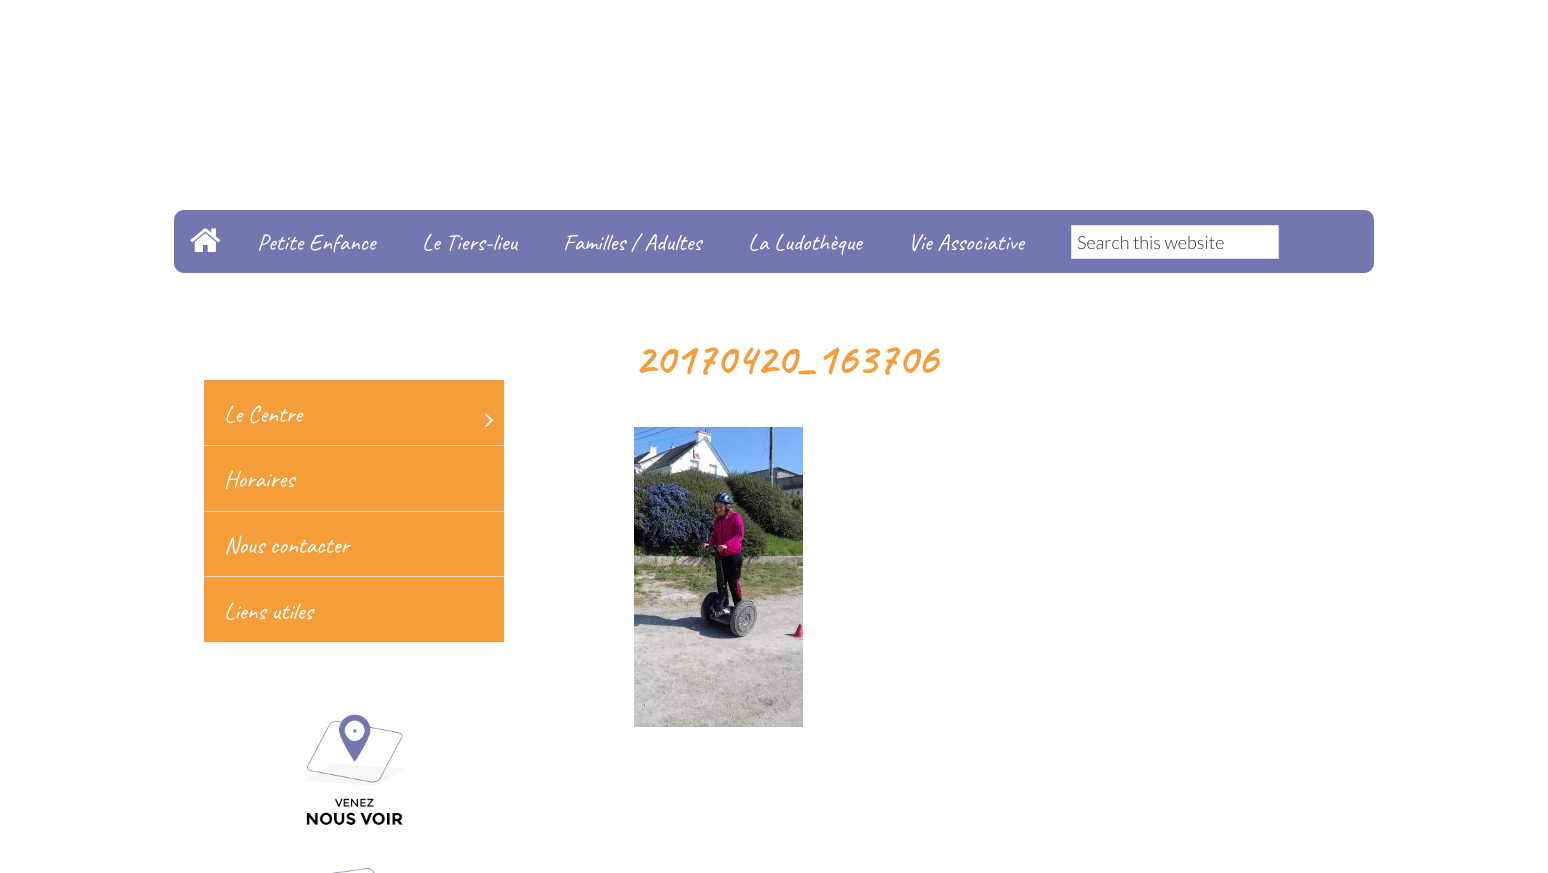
import math
import cairo


def round_path(ctx, x, y, w, h, r):
	ctx.new_sub_path()
	for i, (u, v) in enumerate([(x + w - r, y + h - r), (x + r, y + h - r), (x + r, y + r), (x + w - r, y + r)]):
		ctx.arc(u, v, r, i * math.pi / 2, (i + 1) * math.pi / 2)
	ctx.close_path()

def paste(ctx, path, x, y, w, h):
	ctx.save()
	ctx.set_source_surface(cairo.ImageSurface.create_from_png(path), x, y)
	ctx.rectangle(x, y, w, h)
	ctx.fill()
	ctx.restore()

def draw(ctx):
	ctx.set_source_rgb(1, 1, 1)
	ctx.paint()
	ctx.set_source_rgb(0.455, 0.463, 0.686)
	round_path(ctx, 174, 210, 1200, 63, 10)
	ctx.fill()
	paste(ctx, 'media/1.png', 190, 228, 31, 24)
	ctx.select_font_face('Caveat')
	ctx.set_font_size(23.5)
	ctx.set_source_rgb(1, 1, 1)
	for x, y, s in [
		(257, 250, 'Petite Enfance'),
		(422, 250, 'Le Tiers-lieu'),
		(563, 250, 'Familles / Adultes'),
		(748, 250, 'La Ludothèque'),
		(908, 250, 'Vie Associative'),
	]:
		ctx.move_to(x, y)
		ctx.show_text(s)
	ctx.rectangle(1071.5, 225.5, 207, 33)
	ctx.fill_preserve()
	ctx.set_source_rgb(0.867, 0.867, 0.867)
	ctx.set_line_width(1)
	ctx.stroke()
	ctx.select_font_face('Lato Light')
	ctx.set_font_size(18)
	ctx.set_source_rgb(0.2, 0.2, 0.2)
	ctx.move_to(1077, 249)
	ctx.show_text('Search this website')
	ctx.select_font_face('Caveat', cairo.FONT_SLANT_NORMAL, cairo.FONT_WEIGHT_BOLD)
	ctx.set_font_size(45)
	ctx.set_source_rgb(0.953, 0.62, 0.231)
	ctx.move_to(634, 374)
	ctx.show_text('20170420_163706')
	paste(ctx, 'media/2.png', 634, 427, 169, 300)
	ctx.rectangle(204, 380, 300, 262)
	ctx.fill()
	ctx.select_font_face('Caveat')
	ctx.set_font_size(24)
	ctx.set_source_rgb(1, 1, 1)
	ctx.move_to(224, 422)
	ctx.show_text('Le Centre')
	paste(ctx, 'media/3.png', 485, 413, 8, 14)
	ctx.set_source_rgb(0.847, 0.847, 0.847)
	ctx.rectangle(204, 445, 300, 1)
	ctx.fill()
	ctx.set_source_rgb(1, 1, 1)
	ctx.move_to(224, 487)
	ctx.show_text('Horaires')
	ctx.set_source_rgb(0.847, 0.847, 0.847)
	ctx.rectangle(204, 511, 300, 1)
	ctx.fill()
	ctx.set_source_rgb(1, 1, 1)
	ctx.move_to(224, 553)
	ctx.show_text('Nous contacter')
	ctx.set_source_rgb(0.847, 0.847, 0.847)
	ctx.rectangle(204, 576, 300, 1)
	ctx.fill()
	ctx.set_source_rgb(1, 1, 1)
	ctx.move_to(224, 619)
	ctx.show_text('Liens utiles')
	paste(ctx, 'media/4.png', 304, 712, 101, 113)
	paste(ctx, 'media/5.png', 328, 868, 49, 5)


surface = cairo.ImageSurface(cairo.FORMAT_RGB24, 1548, 873)
ctx = cairo.Context(surface)
options = cairo.FontOptions()
options.set_hint_metrics(cairo.HINT_METRICS_OFF)
options.set_hint_style(cairo.HINT_STYLE_NONE)
ctx.set_font_options(options)
ctx.set_miter_limit(4)
draw(ctx)
surface.write_to_png('image.png')
